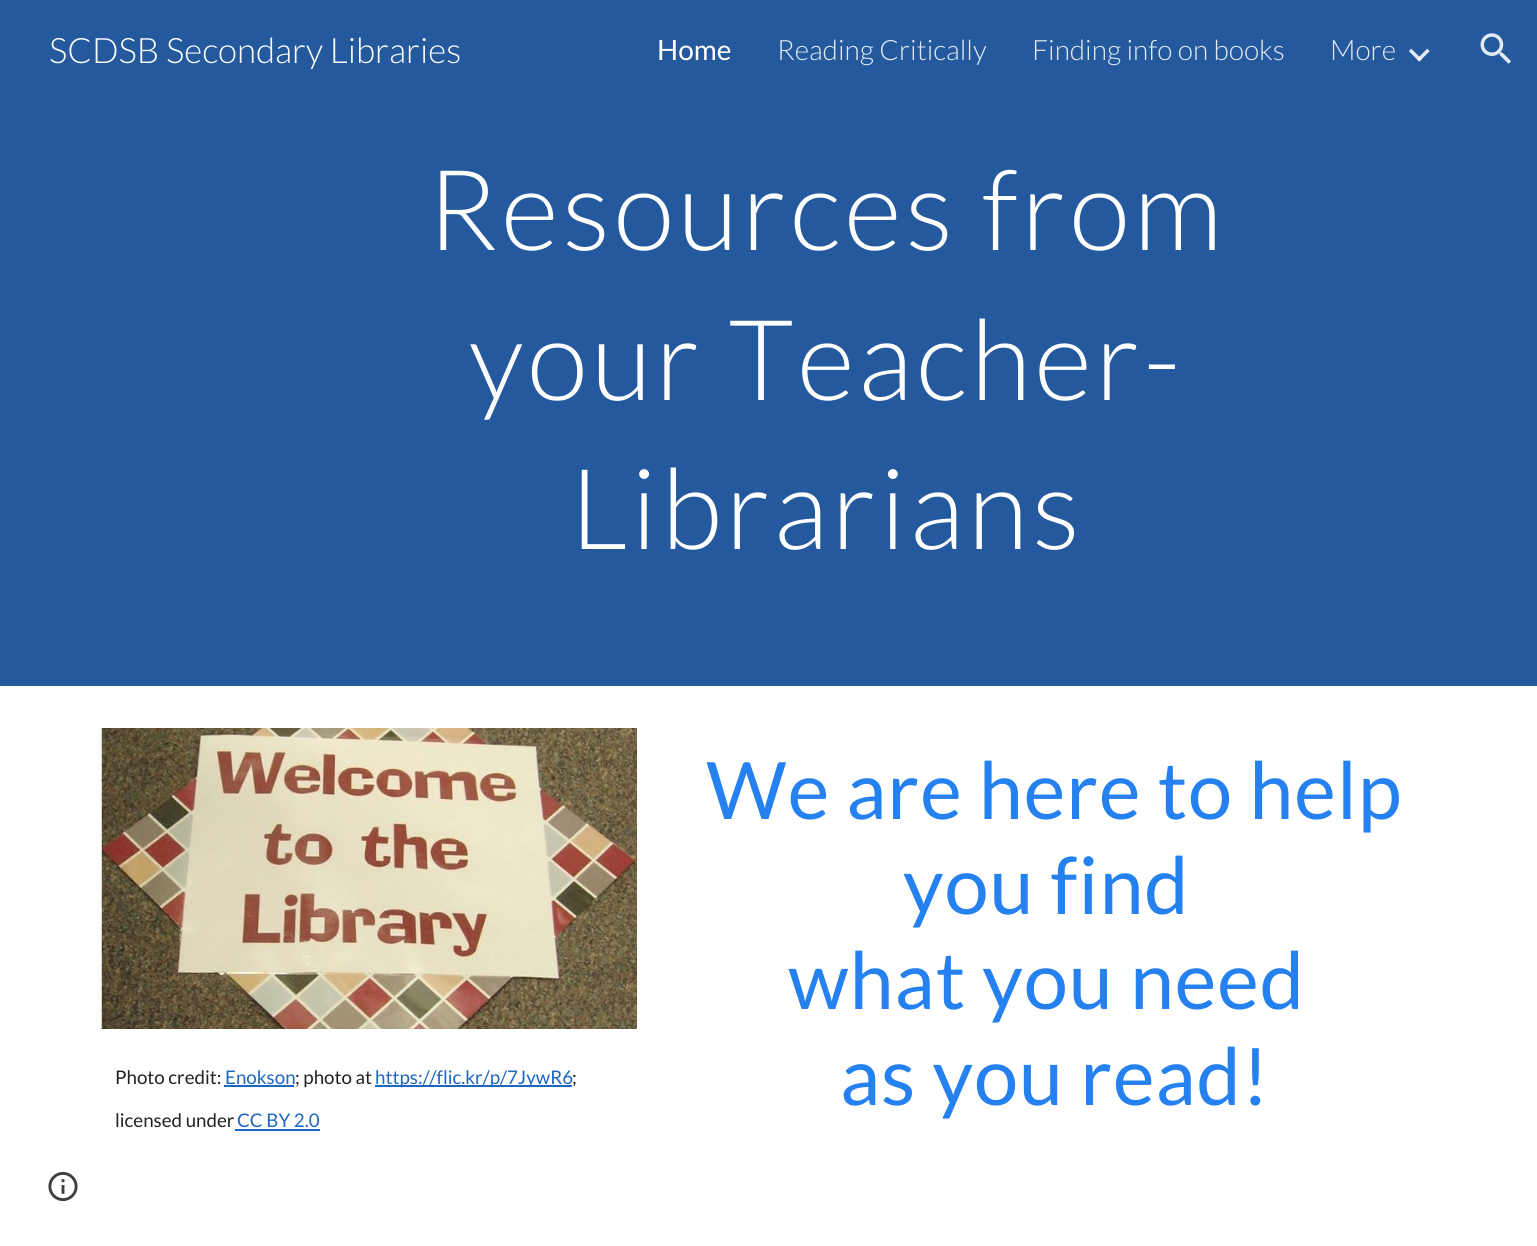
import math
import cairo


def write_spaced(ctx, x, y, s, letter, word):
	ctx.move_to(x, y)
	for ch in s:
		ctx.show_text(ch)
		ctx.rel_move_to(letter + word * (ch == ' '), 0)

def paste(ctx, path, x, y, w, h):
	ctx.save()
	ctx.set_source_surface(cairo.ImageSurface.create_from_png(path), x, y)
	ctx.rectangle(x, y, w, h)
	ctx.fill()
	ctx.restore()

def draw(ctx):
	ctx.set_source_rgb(1, 1, 1)
	ctx.paint()
	ctx.set_source_rgb(0.141, 0.353, 0.616)
	ctx.rectangle(0, 0, 1537, 686)
	ctx.fill()
	ctx.select_font_face('Lato Light')
	ctx.set_font_size(35)
	ctx.set_source_rgb(1, 1, 1)
	ctx.move_to(49, 63)
	ctx.show_text('SCDSB Secondary Libraries')
	ctx.select_font_face('Lato')
	ctx.set_font_size(28)
	ctx.move_to(657, 60)
	ctx.show_text('Home')
	ctx.select_font_face('Lato Light')
	ctx.set_source_rgb(0.89, 0.918, 0.949)
	for x, y, s in [
		(777, 60, 'Reading Critically'),
		(1032, 60, 'Finding info on books'),
		(1330, 60, 'More'),
	]:
		ctx.move_to(x, y)
		ctx.show_text(s)
	paste(ctx, 'media/1.png', 1408, 48, 22, 14)
	paste(ctx, 'media/2.png', 1480, 33, 31, 31)
	ctx.set_font_size(112)
	ctx.set_source_rgb(1, 1, 1)
	for x, y, s in [
		(427, 250, 'Resources from'),
		(469, 400, 'your Teacher-'),
		(570, 549, 'Librarians'),
	]:
		write_spaced(ctx, x, y, s, 3.5, 0)
	paste(ctx, 'media/3.png', 101, 728, 536, 301)
	ctx.select_font_face('Lato')
	ctx.set_font_size(18.75)
	ctx.set_source_rgb(0.129, 0.129, 0.129)
	ctx.move_to(115, 1084)
	ctx.show_text('Photo credit:')
	ctx.set_source_rgb(0.118, 0.404, 0.753)
	ctx.move_to(225, 1084)
	ctx.show_text('Enokson')
	ctx.rectangle(224, 1085, 70, 2)
	ctx.fill()
	ctx.set_source_rgb(0.129, 0.129, 0.129)
	ctx.move_to(295, 1084)
	ctx.show_text('; photo at')
	ctx.set_source_rgb(0.118, 0.404, 0.753)
	ctx.rectangle(375, 1085, 197, 2)
	ctx.fill()
	ctx.move_to(375, 1084)
	ctx.show_text('https://flic.kr/p/7JywR6')
	ctx.set_source_rgb(0.129, 0.129, 0.129)
	ctx.move_to(572, 1084)
	ctx.show_text(';')
	ctx.move_to(115, 1127)
	ctx.show_text('licensed under')
	ctx.set_source_rgb(0.118, 0.404, 0.753)
	ctx.move_to(237, 1127)
	ctx.show_text('CC BY 2.0')
	ctx.rectangle(235, 1129, 85, 2)
	ctx.fill()
	ctx.set_font_size(79.25)
	ctx.set_source_rgb(0.149, 0.506, 0.941)
	for x, y, s in [
		(706, 819, 'We are here to help'),
		(903, 914, 'you find'),
		(788, 1009, 'what you need'),
		(840, 1105, 'as you read!'),
	]:
		write_spaced(ctx, x, y, s, 0.9, 0)
	paste(ctx, 'media/4.png', 48, 1171, 30, 31)


surface = cairo.ImageSurface(cairo.FORMAT_RGB24, 1537, 1246)
ctx = cairo.Context(surface)
options = cairo.FontOptions()
options.set_hint_metrics(cairo.HINT_METRICS_OFF)
options.set_hint_style(cairo.HINT_STYLE_NONE)
ctx.set_font_options(options)
ctx.set_miter_limit(4)
draw(ctx)
surface.write_to_png('image.png')
